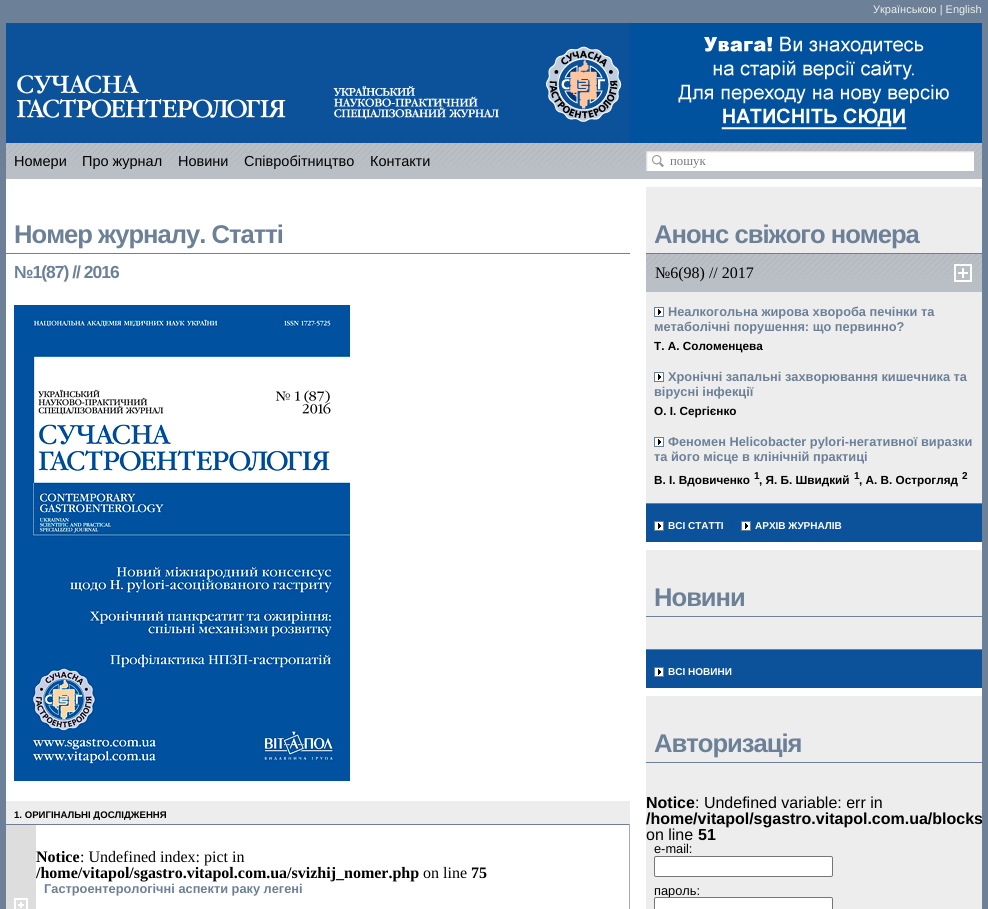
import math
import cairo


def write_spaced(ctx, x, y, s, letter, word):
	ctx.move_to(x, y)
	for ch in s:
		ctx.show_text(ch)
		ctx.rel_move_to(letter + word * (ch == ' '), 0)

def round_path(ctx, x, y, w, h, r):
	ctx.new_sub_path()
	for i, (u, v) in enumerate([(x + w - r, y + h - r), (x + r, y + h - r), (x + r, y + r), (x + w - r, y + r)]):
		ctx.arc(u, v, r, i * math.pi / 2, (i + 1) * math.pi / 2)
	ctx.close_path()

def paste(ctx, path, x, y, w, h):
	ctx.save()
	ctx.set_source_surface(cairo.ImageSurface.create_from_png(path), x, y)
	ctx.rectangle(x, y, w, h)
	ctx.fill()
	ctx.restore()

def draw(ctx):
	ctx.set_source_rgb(0.424, 0.502, 0.592)
	ctx.paint()
	ctx.select_font_face('Liberation Sans')
	ctx.set_font_size(11)
	ctx.set_source_rgb(0.933, 0.933, 0.933)
	ctx.move_to(873, 13)
	ctx.show_text('Українською | English')
	ctx.set_source_rgb(1, 1, 1)
	ctx.rectangle(6, 179, 976, 730)
	ctx.fill()
	ctx.set_source_rgb(0, 0.318, 0.62)
	ctx.rectangle(630, 23, 352, 120)
	ctx.fill()
	paste(ctx, 'media/1.png', 6, 23, 624, 120)
	paste(ctx, 'media/2.png', 678, 36, 271, 94)
	ctx.set_source_rgb(0.729, 0.749, 0.773)
	ctx.rectangle(6, 143, 976, 36)
	ctx.fill()
	paste(ctx, 'media/3.png', 6, 143, 976, 25)
	ctx.set_font_size(14.5)
	ctx.set_source_rgb(0, 0, 0)
	for x, y, s in [
		(14, 166, 'Номери'),
		(82, 166, 'Про журнал'),
		(178, 166, 'Новини'),
		(244, 166, 'Співробітництво'),
		(370, 166, 'Контакти'),
	]:
		ctx.move_to(x, y)
		ctx.show_text(s)
	paste(ctx, 'media/4.png', 646, 151, 328, 20)
	ctx.select_font_face('Liberation Serif')
	ctx.set_font_size(12.8)
	ctx.set_source_rgb(0.467, 0.467, 0.467)
	ctx.move_to(670, 165)
	ctx.show_text('пошук')
	ctx.set_source_rgb(0.424, 0.502, 0.592)
	ctx.rectangle(6, 253, 624, 1)
	ctx.fill()
	ctx.select_font_face('Liberation Sans', cairo.FONT_SLANT_NORMAL, cairo.FONT_WEIGHT_BOLD)
	ctx.set_font_size(25.6)
	write_spaced(ctx, 14, 243, 'Номер журналу. Статті', -1, 0)
	ctx.set_font_size(17.5)
	write_spaced(ctx, 14, 278, '№1(87) // 2016', -1, 0)
	paste(ctx, 'media/5.png', 14, 305, 336, 476)
	ctx.set_source_rgb(0.929, 0.929, 0.929)
	ctx.rectangle(6, 801, 624, 23)
	ctx.fill()
	ctx.set_font_size(9.6)
	ctx.set_source_rgb(0, 0, 0)
	ctx.move_to(14, 818)
	ctx.show_text('1. ОРИГІНАЛЬНІ ДОСЛІДЖЕННЯ')
	ctx.set_source_rgb(0.424, 0.502, 0.592)
	ctx.rectangle(6, 824, 624, 1)
	ctx.fill()
	ctx.set_source_rgb(0.667, 0.667, 0.667)
	ctx.rectangle(629, 824, 1, 85)
	ctx.fill()
	ctx.set_source_rgb(0.867, 0.867, 0.867)
	ctx.rectangle(6, 825, 30, 84)
	ctx.fill()
	paste(ctx, 'media/6.png', 14, 898, 14, 11)
	ctx.select_font_face('Liberation Serif', cairo.FONT_SLANT_NORMAL, cairo.FONT_WEIGHT_BOLD)
	ctx.set_font_size(16)
	ctx.set_source_rgb(0, 0, 0)
	ctx.move_to(36, 862)
	ctx.show_text('Notice')
	ctx.select_font_face('Liberation Serif')
	ctx.move_to(80, 862)
	ctx.show_text(': Undefined index: pict in')
	ctx.select_font_face('Liberation Serif', cairo.FONT_SLANT_NORMAL, cairo.FONT_WEIGHT_BOLD)
	ctx.move_to(36, 878)
	ctx.show_text('/home/vitapol/sgastro.vitapol.com.ua/svizhij_nomer.php')
	ctx.select_font_face('Liberation Serif')
	ctx.move_to(423, 878)
	ctx.show_text('on line')
	ctx.select_font_face('Liberation Serif', cairo.FONT_SLANT_NORMAL, cairo.FONT_WEIGHT_BOLD)
	ctx.move_to(471, 878)
	ctx.show_text('75')
	ctx.select_font_face('Liberation Sans', cairo.FONT_SLANT_NORMAL, cairo.FONT_WEIGHT_BOLD)
	ctx.set_font_size(12.8)
	ctx.set_source_rgb(0.424, 0.502, 0.592)
	ctx.move_to(44, 893)
	ctx.show_text('Гастроентерологічні аспекти раку легені')
	ctx.set_source_rgb(0.929, 0.929, 0.929)
	ctx.rectangle(646, 187, 336, 316)
	ctx.fill()
	ctx.set_source_rgb(0.424, 0.502, 0.592)
	ctx.rectangle(646, 253, 336, 1)
	ctx.fill()
	ctx.set_font_size(25.6)
	write_spaced(ctx, 654, 243, 'Анонс свіжого номера', -1, 0)
	ctx.set_source_rgb(0.729, 0.749, 0.773)
	ctx.rectangle(646, 254, 336, 38)
	ctx.fill()
	paste(ctx, 'media/7.png', 954, 264, 18, 18)
	paste(ctx, 'media/8.png', 646, 254, 336, 25)
	ctx.select_font_face('Liberation Serif')
	ctx.set_font_size(16)
	ctx.set_source_rgb(0, 0, 0)
	ctx.move_to(655, 278)
	ctx.show_text('№6(98) // 2017')
	paste(ctx, 'media/9.png', 654, 307, 10, 10)
	ctx.select_font_face('Liberation Sans', cairo.FONT_SLANT_NORMAL, cairo.FONT_WEIGHT_BOLD)
	ctx.set_font_size(12.8)
	ctx.set_source_rgb(0.424, 0.502, 0.592)
	ctx.move_to(668, 316)
	ctx.show_text('Неалкогольна жирова хвороба печінки та')
	ctx.move_to(654, 331)
	ctx.show_text('метаболічні порушення: що первинно?')
	ctx.set_font_size(11.75)
	ctx.set_source_rgb(0, 0, 0)
	ctx.move_to(654, 350)
	ctx.show_text('Т. А. Соломенцева')
	paste(ctx, 'media/9.png', 654, 372, 10, 10)
	ctx.set_font_size(12.8)
	ctx.set_source_rgb(0.424, 0.502, 0.592)
	ctx.move_to(668, 381)
	ctx.show_text('Хронічні запальні захворювання кишечника та')
	ctx.move_to(654, 396)
	ctx.show_text('вірусні інфекції')
	ctx.set_font_size(11.75)
	ctx.set_source_rgb(0, 0, 0)
	ctx.move_to(654, 415)
	ctx.show_text('О. І. Сергієнко')
	paste(ctx, 'media/9.png', 654, 437, 10, 10)
	ctx.set_font_size(12.8)
	ctx.set_source_rgb(0.424, 0.502, 0.592)
	ctx.move_to(668, 446)
	ctx.show_text('Феномен Helicobacter pylori-негативної виразки')
	ctx.move_to(654, 461)
	ctx.show_text('та його місце в клінічній практиці')
	ctx.set_font_size(11.75)
	ctx.set_source_rgb(0, 0, 0)
	ctx.move_to(654, 484)
	ctx.show_text('В. І. Вдовиченко')
	ctx.set_font_size(10)
	ctx.move_to(754, 479)
	ctx.show_text('1')
	ctx.set_font_size(11.75)
	ctx.move_to(759, 484)
	ctx.show_text(', Я. Б. Швидкий')
	ctx.set_font_size(10)
	ctx.move_to(854, 479)
	ctx.show_text('1')
	ctx.set_font_size(11.75)
	ctx.move_to(859, 484)
	ctx.show_text(', А. В. Острогляд')
	ctx.set_font_size(10)
	ctx.move_to(962, 479)
	ctx.show_text('2')
	ctx.set_source_rgb(0.043, 0.322, 0.604)
	ctx.rectangle(646, 504, 336, 38)
	ctx.fill()
	ctx.set_source_rgb(0.424, 0.502, 0.592)
	ctx.rectangle(646, 503, 336, 1)
	ctx.fill()
	paste(ctx, 'media/9.png', 654, 521, 10, 10)
	ctx.set_source_rgb(0, 0.318, 0.62)
	ctx.rectangle(732, 520, 1, 12)
	ctx.fill()
	ctx.set_source_rgb(1, 1, 1)
	ctx.move_to(668, 529)
	ctx.show_text('ВСІ СТАТТІ')
	paste(ctx, 'media/9.png', 741, 521, 10, 10)
	ctx.move_to(755, 529)
	ctx.show_text('АРХІВ ЖУРНАЛІВ')
	ctx.set_source_rgb(0.929, 0.929, 0.929)
	ctx.rectangle(646, 550, 336, 99)
	ctx.fill()
	ctx.set_source_rgb(0.424, 0.502, 0.592)
	ctx.rectangle(646, 616, 336, 1)
	ctx.fill()
	ctx.set_font_size(25.6)
	write_spaced(ctx, 654, 606, 'Новини', -1, 0)
	ctx.set_source_rgb(0.043, 0.322, 0.604)
	ctx.rectangle(646, 650, 336, 38)
	ctx.fill()
	ctx.set_source_rgb(0.424, 0.502, 0.592)
	ctx.rectangle(646, 649, 336, 1)
	ctx.fill()
	paste(ctx, 'media/9.png', 654, 667, 10, 10)
	ctx.set_font_size(10)
	ctx.set_source_rgb(1, 1, 1)
	ctx.move_to(668, 675)
	ctx.show_text('ВСІ НОВИНИ')
	ctx.set_source_rgb(0.929, 0.929, 0.929)
	ctx.rectangle(646, 696, 336, 213)
	ctx.fill()
	ctx.set_source_rgb(0.424, 0.502, 0.592)
	ctx.rectangle(646, 762, 336, 1)
	ctx.fill()
	ctx.set_font_size(25.6)
	write_spaced(ctx, 654, 752, 'Авторизація', -1, 0)
	ctx.set_font_size(16)
	ctx.set_source_rgb(0, 0, 0)
	ctx.move_to(646, 808)
	ctx.show_text('Notice')
	ctx.select_font_face('Liberation Sans')
	ctx.move_to(695, 808)
	ctx.show_text(': Undefined variable: err in')
	ctx.save()
	ctx.rectangle(6, 187, 976, 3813)
	ctx.clip()
	ctx.select_font_face('Liberation Sans', cairo.FONT_SLANT_NORMAL, cairo.FONT_WEIGHT_BOLD)
	ctx.move_to(646, 824)
	ctx.show_text('/home/vitapol/sgastro.vitapol.com.ua/blocks')
	ctx.restore()
	ctx.move_to(646, 840)
	ctx.show_text('on line')
	ctx.select_font_face('Liberation Sans', cairo.FONT_SLANT_NORMAL, cairo.FONT_WEIGHT_BOLD)
	ctx.move_to(698, 840)
	ctx.show_text('51')
	ctx.select_font_face('Liberation Sans')
	ctx.set_font_size(12.8)
	ctx.move_to(654, 853)
	ctx.show_text('e-mail:')
	ctx.set_source_rgb(1, 1, 1)
	round_path(ctx, 654.5, 856.5, 178, 20, 1.5)
	ctx.fill_preserve()
	ctx.set_source_rgb(0.463, 0.463, 0.463)
	ctx.set_line_width(1)
	ctx.stroke()
	ctx.set_source_rgb(0, 0, 0)
	ctx.move_to(654, 895)
	ctx.show_text('пароль:')
	ctx.set_source_rgb(1, 1, 1)
	round_path(ctx, 654.5, 897.5, 178, 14, 1.5)
	ctx.fill_preserve()
	ctx.set_source_rgb(0.463, 0.463, 0.463)
	ctx.stroke()


surface = cairo.ImageSurface(cairo.FORMAT_RGB24, 988, 909)
ctx = cairo.Context(surface)
options = cairo.FontOptions()
options.set_hint_metrics(cairo.HINT_METRICS_OFF)
options.set_hint_style(cairo.HINT_STYLE_NONE)
ctx.set_font_options(options)
ctx.set_miter_limit(4)
draw(ctx)
surface.write_to_png('image.png')
